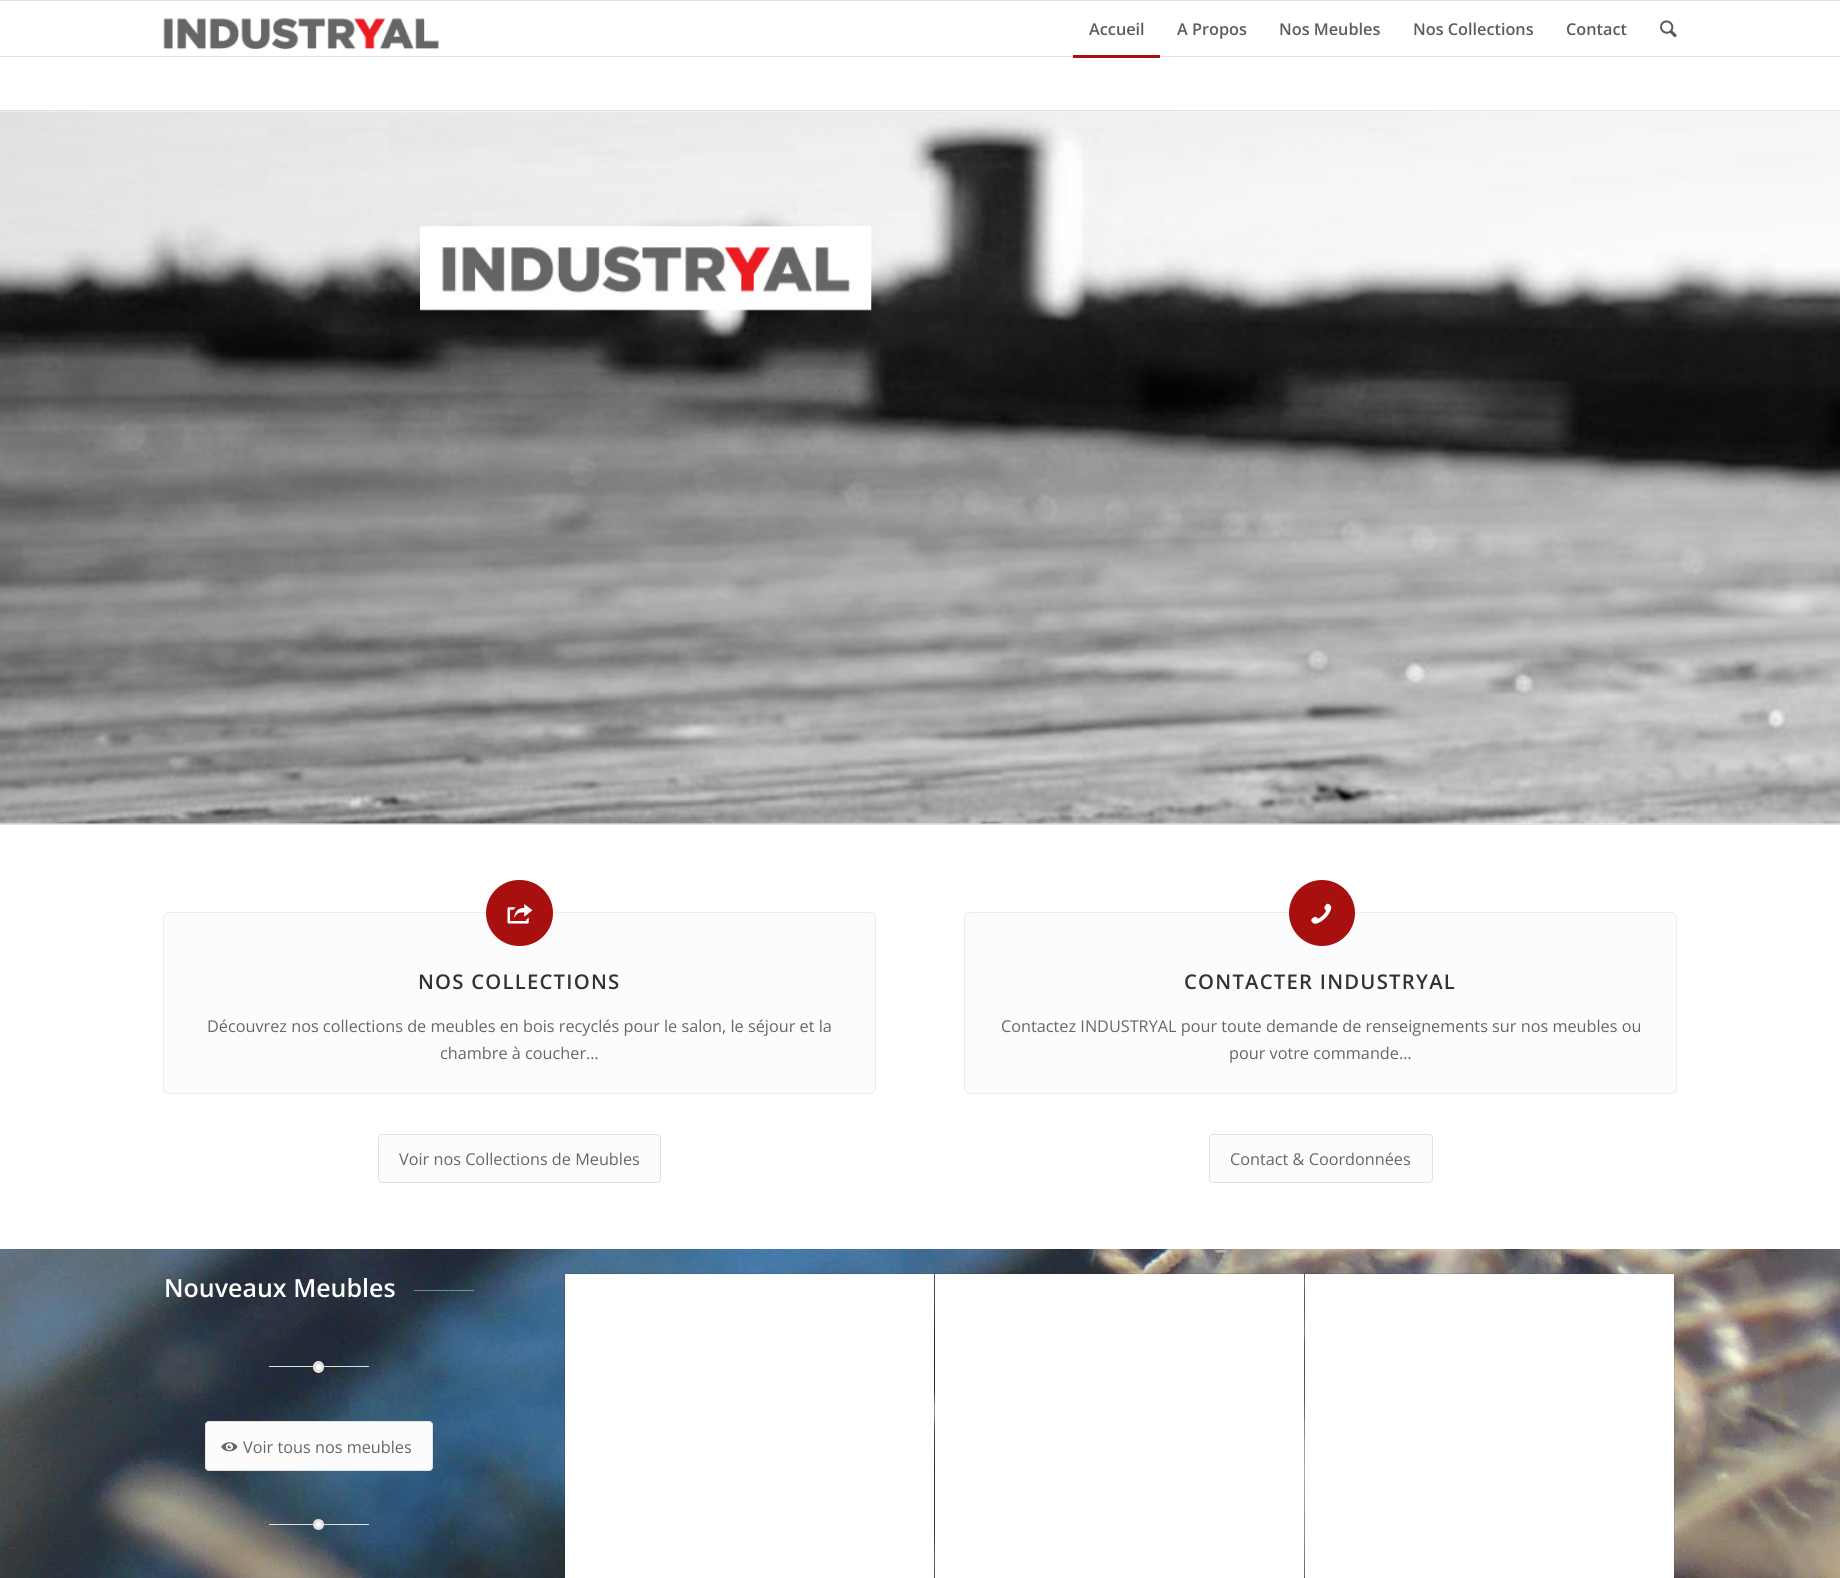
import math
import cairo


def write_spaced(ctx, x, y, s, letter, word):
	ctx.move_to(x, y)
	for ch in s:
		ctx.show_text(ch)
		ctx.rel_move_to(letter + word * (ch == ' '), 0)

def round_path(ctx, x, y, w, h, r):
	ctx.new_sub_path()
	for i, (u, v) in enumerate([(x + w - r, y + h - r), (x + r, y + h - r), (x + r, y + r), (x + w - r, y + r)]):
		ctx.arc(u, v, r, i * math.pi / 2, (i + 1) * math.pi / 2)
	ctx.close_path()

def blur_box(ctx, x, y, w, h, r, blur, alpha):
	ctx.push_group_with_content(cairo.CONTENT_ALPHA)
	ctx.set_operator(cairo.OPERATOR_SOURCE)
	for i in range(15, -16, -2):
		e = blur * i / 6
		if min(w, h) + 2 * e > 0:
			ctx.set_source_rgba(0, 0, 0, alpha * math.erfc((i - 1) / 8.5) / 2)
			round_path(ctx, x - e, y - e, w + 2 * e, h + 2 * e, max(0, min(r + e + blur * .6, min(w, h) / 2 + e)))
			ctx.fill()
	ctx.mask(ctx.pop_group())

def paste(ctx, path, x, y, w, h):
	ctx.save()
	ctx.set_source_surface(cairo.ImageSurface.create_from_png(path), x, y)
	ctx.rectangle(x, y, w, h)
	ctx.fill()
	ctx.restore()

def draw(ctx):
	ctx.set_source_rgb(1, 1, 1)
	ctx.paint()
	ctx.set_source_rgb(0.882, 0.882, 0.882)
	ctx.rectangle(0, 0, 1840, 1)
	ctx.fill()
	ctx.rectangle(0, 56, 1840, 1)
	ctx.fill()
	paste(ctx, 'media/1.png', 163, 17, 276, 33)
	ctx.select_font_face('Open Sans SemiBold')
	ctx.set_font_size(16.25)
	ctx.set_source_rgb(0.361, 0.361, 0.361)
	ctx.move_to(1089, 35)
	ctx.show_text('Accueil')
	ctx.set_source_rgb(0.659, 0.063, 0.063)
	ctx.rectangle(1073, 55, 87, 3)
	ctx.fill()
	ctx.set_source_rgb(0.361, 0.361, 0.361)
	for x, y, s in [
		(1177, 35, 'A Propos'),
		(1279, 35, 'Nos Meubles'),
		(1413, 35, 'Nos Collections'),
		(1566, 35, 'Contact'),
	]:
		ctx.move_to(x, y)
		ctx.show_text(s)
	paste(ctx, 'media/2.png', 1660, 20, 17, 18)
	ctx.set_source_rgb(0.882, 0.882, 0.882)
	ctx.rectangle(0, 110, 1840, 1)
	ctx.fill()
	paste(ctx, 'media/3.png', 0, 111, 1840, 713)
	paste(ctx, 'media/4.png', 420, 226, 452, 85)
	ctx.rectangle(0, 824, 1840, 1)
	ctx.fill()
	ctx.set_source_rgb(0, 0, 0)
	blur_box(ctx, 164, 913, 711, 180, 4, 0.5, 0.3)
	ctx.set_source_rgb(0.988, 0.988, 0.988)
	round_path(ctx, 164, 913, 711, 180, 4)
	ctx.fill()
	ctx.set_source_rgb(0.659, 0.063, 0.063)
	round_path(ctx, 486, 880, 67, 66, 33)
	ctx.fill()
	paste(ctx, 'media/5.png', 507, 904, 26, 20)
	ctx.set_font_size(20.25)
	ctx.set_source_rgb(0.2, 0.2, 0.2)
	write_spaced(ctx, 418, 989, 'NOS COLLECTIONS', 1.25, 0)
	ctx.select_font_face('Open Sans')
	ctx.set_font_size(16.25)
	ctx.set_source_rgb(0.4, 0.4, 0.4)
	ctx.move_to(207, 1032)
	ctx.show_text('Découvrez nos collections de meubles en bois recyclés pour le salon, le séjour et la')
	ctx.move_to(440, 1059)
	ctx.show_text('chambre à coucher…')
	ctx.set_source_rgb(0.988, 0.988, 0.988)
	round_path(ctx, 378.5, 1134.5, 282, 48, 3.5)
	ctx.fill_preserve()
	ctx.set_source_rgb(0.882, 0.882, 0.882)
	ctx.set_line_width(1)
	ctx.stroke()
	ctx.set_source_rgb(0.4, 0.4, 0.4)
	ctx.move_to(399, 1165)
	ctx.show_text('Voir nos Collections de Meubles')
	ctx.set_source_rgb(0, 0, 0)
	blur_box(ctx, 965, 913, 711, 180, 4, 0.5, 0.3)
	ctx.set_source_rgb(0.988, 0.988, 0.988)
	round_path(ctx, 965, 913, 711, 180, 4)
	ctx.fill()
	ctx.set_source_rgb(0.659, 0.063, 0.063)
	ctx.arc(1322, 913, 33, 0, 2 * math.pi)
	ctx.fill()
	paste(ctx, 'media/6.png', 1311, 903, 21, 21)
	ctx.select_font_face('Open Sans SemiBold')
	ctx.set_font_size(20.25)
	ctx.set_source_rgb(0.2, 0.2, 0.2)
	write_spaced(ctx, 1184, 989, 'CONTACTER INDUSTRYAL', 1.25, 0)
	ctx.select_font_face('Open Sans')
	ctx.set_font_size(16.25)
	ctx.set_source_rgb(0.4, 0.4, 0.4)
	ctx.move_to(1001, 1032)
	ctx.show_text('Contactez INDUSTRYAL pour toute demande de renseignements sur nos meubles ou')
	ctx.move_to(1229, 1059)
	ctx.show_text('pour votre commande…')
	ctx.set_source_rgb(0.988, 0.988, 0.988)
	round_path(ctx, 1209.5, 1134.5, 223, 48, 3.5)
	ctx.fill_preserve()
	ctx.set_source_rgb(0.882, 0.882, 0.882)
	ctx.stroke()
	ctx.set_source_rgb(0.4, 0.4, 0.4)
	ctx.move_to(1230, 1165)
	ctx.show_text('Contact & Coordonnées')
	paste(ctx, 'media/7.png', 0, 1249, 1840, 329)
	ctx.select_font_face('Open Sans SemiBold')
	ctx.set_font_size(25)
	ctx.set_source_rgb(1, 1, 1)
	ctx.move_to(164, 1297)
	ctx.show_text('Nouveaux Meubles')
	ctx.set_source_rgba(1, 1, 1, 0.4)
	ctx.rectangle(414, 1290, 60, 1)
	ctx.fill()
	ctx.set_source_rgb(0.882, 0.882, 0.882)
	ctx.rectangle(269, 1366, 100, 1)
	ctx.fill()
	ctx.set_source_rgb(1, 1, 1)
	round_path(ctx, 314.5, 1362.5, 8, 9, 4)
	ctx.fill_preserve()
	ctx.set_source_rgb(0.882, 0.882, 0.882)
	ctx.set_line_width(3)
	ctx.stroke()
	ctx.set_source_rgb(0.988, 0.988, 0.988)
	round_path(ctx, 205.5, 1421.5, 227, 49, 3.5)
	ctx.fill_preserve()
	ctx.set_source_rgb(0.882, 0.882, 0.882)
	ctx.set_line_width(1)
	ctx.stroke()
	paste(ctx, 'media/8.png', 221, 1442, 17, 10)
	ctx.select_font_face('Open Sans')
	ctx.set_font_size(16.25)
	ctx.set_source_rgb(0.4, 0.4, 0.4)
	ctx.move_to(243, 1453)
	ctx.show_text('Voir tous nos meubles')
	ctx.set_source_rgb(0.882, 0.882, 0.882)
	ctx.rectangle(269, 1524, 100, 1)
	ctx.fill()
	ctx.set_source_rgb(1, 1, 1)
	ctx.arc(318.5, 1524.5, 4, 0, 2 * math.pi)
	ctx.fill_preserve()
	ctx.set_source_rgb(0.882, 0.882, 0.882)
	ctx.set_line_width(3)
	ctx.stroke()
	ctx.rectangle(564.5, 1273.5, 370, 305)
	ctx.set_source_rgba(0, 0, 0, 0.1)
	ctx.set_line_width(1)
	ctx.stroke()
	ctx.set_source_rgb(1, 1, 1)
	ctx.rectangle(565, 1274, 369, 304)
	ctx.fill()
	ctx.rectangle(934.5, 1273.5, 370, 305)
	ctx.set_source_rgba(0, 0, 0, 0.1)
	ctx.stroke()
	ctx.set_source_rgb(1, 1, 1)
	ctx.rectangle(935, 1274, 369, 304)
	ctx.fill()
	ctx.rectangle(1304.5, 1273.5, 370, 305)
	ctx.set_source_rgba(0, 0, 0, 0.1)
	ctx.stroke()
	ctx.set_source_rgb(1, 1, 1)
	ctx.rectangle(1305, 1274, 369, 304)
	ctx.fill()


surface = cairo.ImageSurface(cairo.FORMAT_RGB24, 1840, 1578)
ctx = cairo.Context(surface)
options = cairo.FontOptions()
options.set_hint_metrics(cairo.HINT_METRICS_OFF)
options.set_hint_style(cairo.HINT_STYLE_NONE)
ctx.set_font_options(options)
ctx.set_miter_limit(4)
draw(ctx)
surface.write_to_png('image.png')
